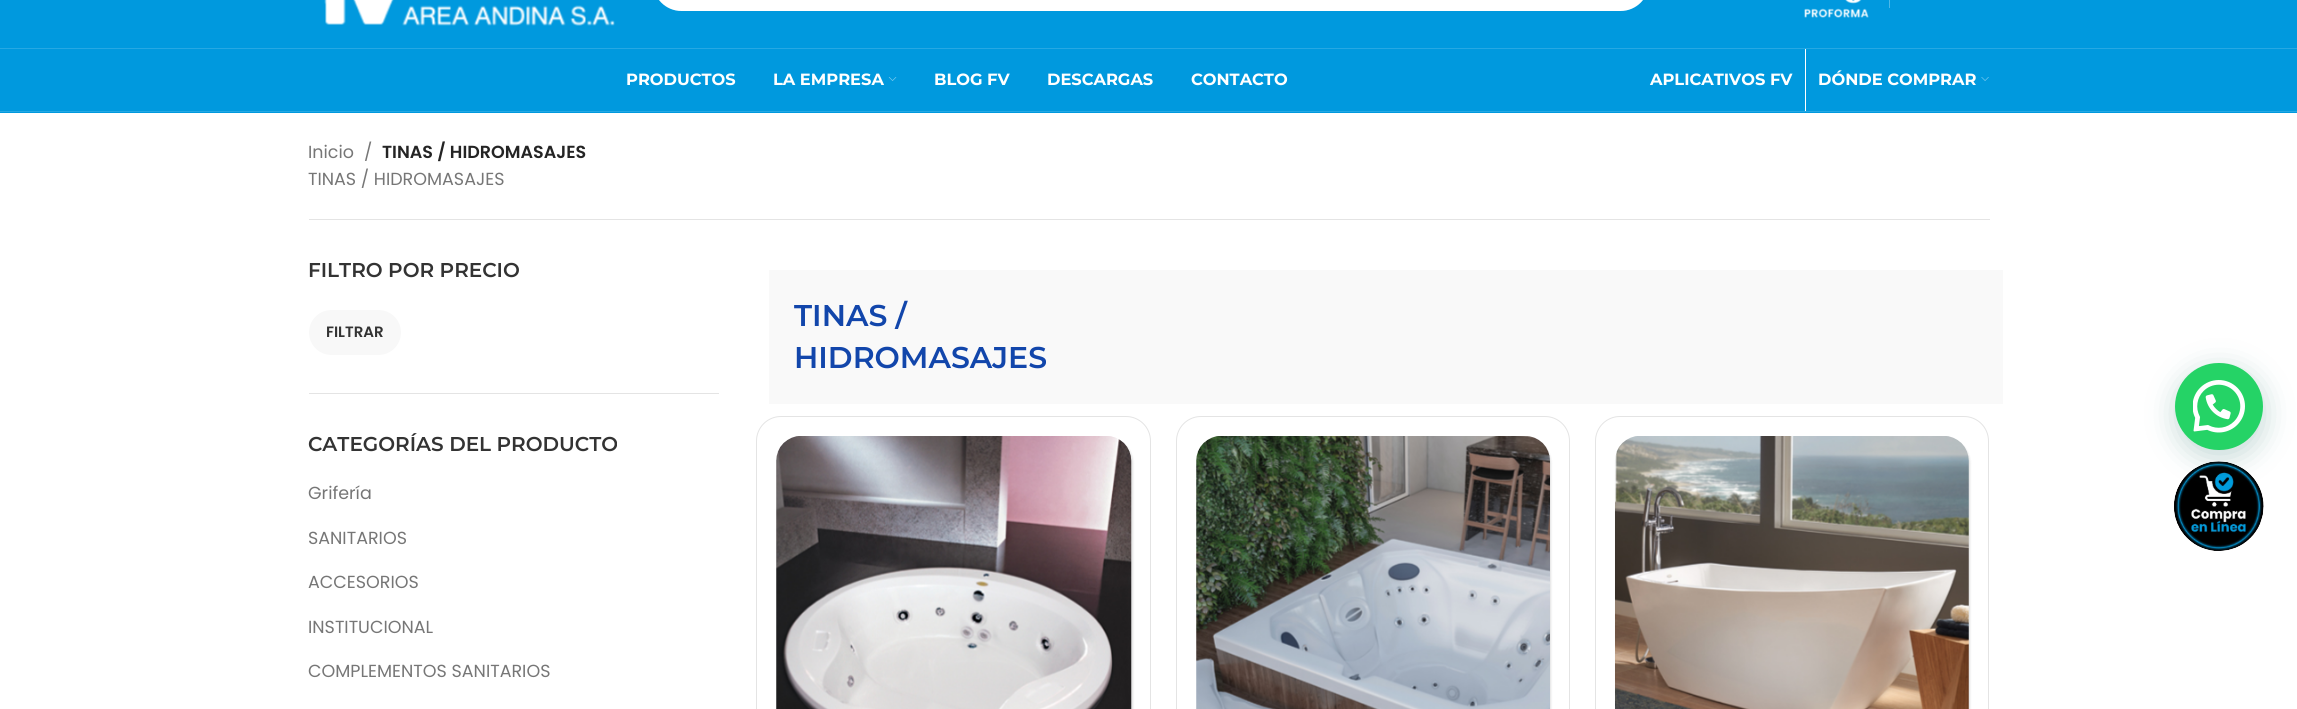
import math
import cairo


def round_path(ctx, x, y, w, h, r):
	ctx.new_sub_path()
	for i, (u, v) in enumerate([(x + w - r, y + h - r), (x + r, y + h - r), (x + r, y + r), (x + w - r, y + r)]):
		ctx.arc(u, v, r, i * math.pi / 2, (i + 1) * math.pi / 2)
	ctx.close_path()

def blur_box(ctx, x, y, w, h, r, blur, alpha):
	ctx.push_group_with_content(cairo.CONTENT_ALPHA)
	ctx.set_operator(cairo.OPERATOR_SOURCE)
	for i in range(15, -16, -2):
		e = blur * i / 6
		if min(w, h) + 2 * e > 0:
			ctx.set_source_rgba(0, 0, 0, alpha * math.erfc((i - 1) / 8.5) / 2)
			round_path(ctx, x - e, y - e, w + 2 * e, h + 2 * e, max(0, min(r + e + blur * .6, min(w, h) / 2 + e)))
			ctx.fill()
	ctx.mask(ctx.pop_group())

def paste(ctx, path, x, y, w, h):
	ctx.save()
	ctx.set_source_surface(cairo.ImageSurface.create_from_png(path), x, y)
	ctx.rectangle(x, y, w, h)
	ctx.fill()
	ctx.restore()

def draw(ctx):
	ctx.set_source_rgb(1, 1, 1)
	ctx.paint()
	ctx.set_source_rgb(0, 0.6, 0.871)
	ctx.rectangle(0, 0, 2297, 48)
	ctx.fill()
	ctx.set_source_rgb(0.149, 0.659, 0.89)
	ctx.rectangle(0, 48, 2297, 1)
	ctx.fill()
	paste(ctx, 'media/1.png', 324, 0, 291, 26)
	ctx.set_source_rgb(1, 1, 1)
	round_path(ctx, 653, -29, 996, 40, 28.5)
	ctx.fill()
	round_path(ctx, 654.5, -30.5, 993, 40, 27)
	ctx.set_source_rgba(1, 1, 1, 0.2)
	ctx.set_line_width(3)
	ctx.stroke()
	paste(ctx, 'media/2.png', 1804, 0, 65, 18)
	ctx.set_source_rgb(0.302, 0.722, 0.91)
	ctx.rectangle(1889, 0, 1, 8)
	ctx.fill()
	ctx.set_source_rgb(0, 0.6, 0.871)
	ctx.rectangle(0, 49, 2297, 64)
	ctx.fill()
	ctx.set_source_rgb(0.149, 0.659, 0.89)
	ctx.rectangle(0, 111, 2297, 1)
	ctx.fill()
	ctx.select_font_face('Montserrat', cairo.FONT_SLANT_NORMAL, cairo.FONT_WEIGHT_BOLD)
	ctx.set_font_size(16.25)
	ctx.set_source_rgb(1, 1, 1)
	ctx.move_to(626, 85)
	ctx.show_text('PRODUCTOS')
	ctx.move_to(773, 85)
	ctx.show_text('LA EMPRESA')
	paste(ctx, 'media/3.png', 888, 77, 9, 4)
	for x, y, s in [
		(934, 85, 'BLOG FV'),
		(1047, 85, 'DESCARGAS'),
		(1191, 85, 'CONTACTO'),
		(1650, 85, 'APLICATIVOS FV'),
	]:
		ctx.move_to(x, y)
		ctx.show_text(s)
	ctx.rectangle(1805, 49, 1, 62)
	ctx.fill()
	ctx.move_to(1818, 85)
	ctx.show_text('DÓNDE COMPRAR')
	paste(ctx, 'media/4.png', 1981, 77, 8, 4)
	ctx.select_font_face('Poppins')
	ctx.set_font_size(17.5)
	ctx.set_source_rgb(0.463, 0.463, 0.463)
	ctx.move_to(308, 158)
	ctx.show_text('Inicio')
	ctx.move_to(364, 158)
	ctx.show_text('/')
	ctx.select_font_face('Poppins SemiBold')
	ctx.set_source_rgb(0.141, 0.141, 0.141)
	ctx.move_to(382, 158)
	ctx.show_text('TINAS / HIDROMASAJES')
	ctx.select_font_face('Poppins')
	ctx.set_source_rgb(0.463, 0.463, 0.463)
	ctx.move_to(308, 185)
	ctx.show_text('TINAS / HIDROMASAJES')
	ctx.set_source_rgb(0.894, 0.894, 0.894)
	ctx.rectangle(309, 219, 1681, 1)
	ctx.fill()
	ctx.rectangle(309, 393, 410, 1)
	ctx.fill()
	ctx.select_font_face('Montserrat SemiBold')
	ctx.set_font_size(20)
	ctx.set_source_rgb(0.2, 0.2, 0.2)
	ctx.move_to(308, 277)
	ctx.show_text('FILTRO POR PRECIO')
	ctx.set_source_rgb(0.969, 0.969, 0.969)
	round_path(ctx, 309, 310, 92, 45, 22.5)
	ctx.fill()
	ctx.select_font_face('Poppins SemiBold')
	ctx.set_font_size(15)
	ctx.set_source_rgb(0.2, 0.2, 0.2)
	ctx.move_to(326, 337)
	ctx.show_text('FILTRAR')
	ctx.select_font_face('Montserrat SemiBold')
	ctx.set_font_size(20)
	ctx.move_to(308, 451)
	ctx.show_text('CATEGORÍAS DEL PRODUCTO')
	ctx.select_font_face('Poppins')
	ctx.set_font_size(17.5)
	ctx.set_source_rgb(0.463, 0.463, 0.463)
	for x, y, s in [
		(308, 499, 'Grifería'),
		(308, 544, 'SANITARIOS'),
		(308, 588, 'ACCESORIOS'),
		(308, 633, 'INSTITUCIONAL'),
		(308, 677, 'COMPLEMENTOS SANITARIOS'),
	]:
		ctx.move_to(x, y)
		ctx.show_text(s)
	ctx.set_source_rgb(0.973, 0.973, 0.973)
	ctx.rectangle(769, 270, 1234, 134)
	ctx.fill()
	ctx.select_font_face('Montserrat SemiBold')
	ctx.set_font_size(30)
	ctx.set_source_rgb(0.071, 0.275, 0.671)
	ctx.move_to(794, 326)
	ctx.show_text('TINAS /')
	ctx.move_to(794, 368)
	ctx.show_text('HIDROMASAJES')
	round_path(ctx, 756.5, 416.5, 394, 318, 24.5)
	ctx.set_source_rgb(0.894, 0.894, 0.894)
	ctx.set_line_width(1)
	ctx.stroke()
	ctx.set_source_rgb(0, 0, 0)
	blur_box(ctx, 778, 438, 355, 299, 25, 1, 0.12)
	paste(ctx, 'media/5.png', 776, 436, 356, 273)
	round_path(ctx, 1176.5, 416.5, 393, 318, 24.5)
	ctx.set_source_rgb(0.894, 0.894, 0.894)
	ctx.stroke()
	ctx.set_source_rgb(0, 0, 0)
	blur_box(ctx, 1198, 438, 353, 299, 25, 1, 0.12)
	paste(ctx, 'media/6.png', 1196, 436, 354, 273)
	round_path(ctx, 1595.5, 416.5, 393, 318, 24.5)
	ctx.set_source_rgb(0.894, 0.894, 0.894)
	ctx.stroke()
	ctx.set_source_rgb(0, 0, 0)
	blur_box(ctx, 1616, 438, 354, 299, 25, 1, 0.12)
	paste(ctx, 'media/7.png', 1615, 436, 354, 273)
	paste(ctx, 'media/8.png', 2174, 461, 90, 90)
	ctx.set_source_rgb(0.027, 0.369, 0.329)
	blur_box(ctx, 2176, 370, 88, 88, 44, 15, 0.24)
	ctx.set_source_rgb(0.145, 0.827, 0.4)
	round_path(ctx, 2175, 363, 88, 87, 43.5)
	ctx.fill()
	paste(ctx, 'media/9.png', 2193, 380, 52, 53)


surface = cairo.ImageSurface(cairo.FORMAT_RGB24, 2297, 709)
ctx = cairo.Context(surface)
options = cairo.FontOptions()
options.set_hint_metrics(cairo.HINT_METRICS_OFF)
options.set_hint_style(cairo.HINT_STYLE_NONE)
ctx.set_font_options(options)
ctx.set_miter_limit(4)
draw(ctx)
surface.write_to_png('image.png')
